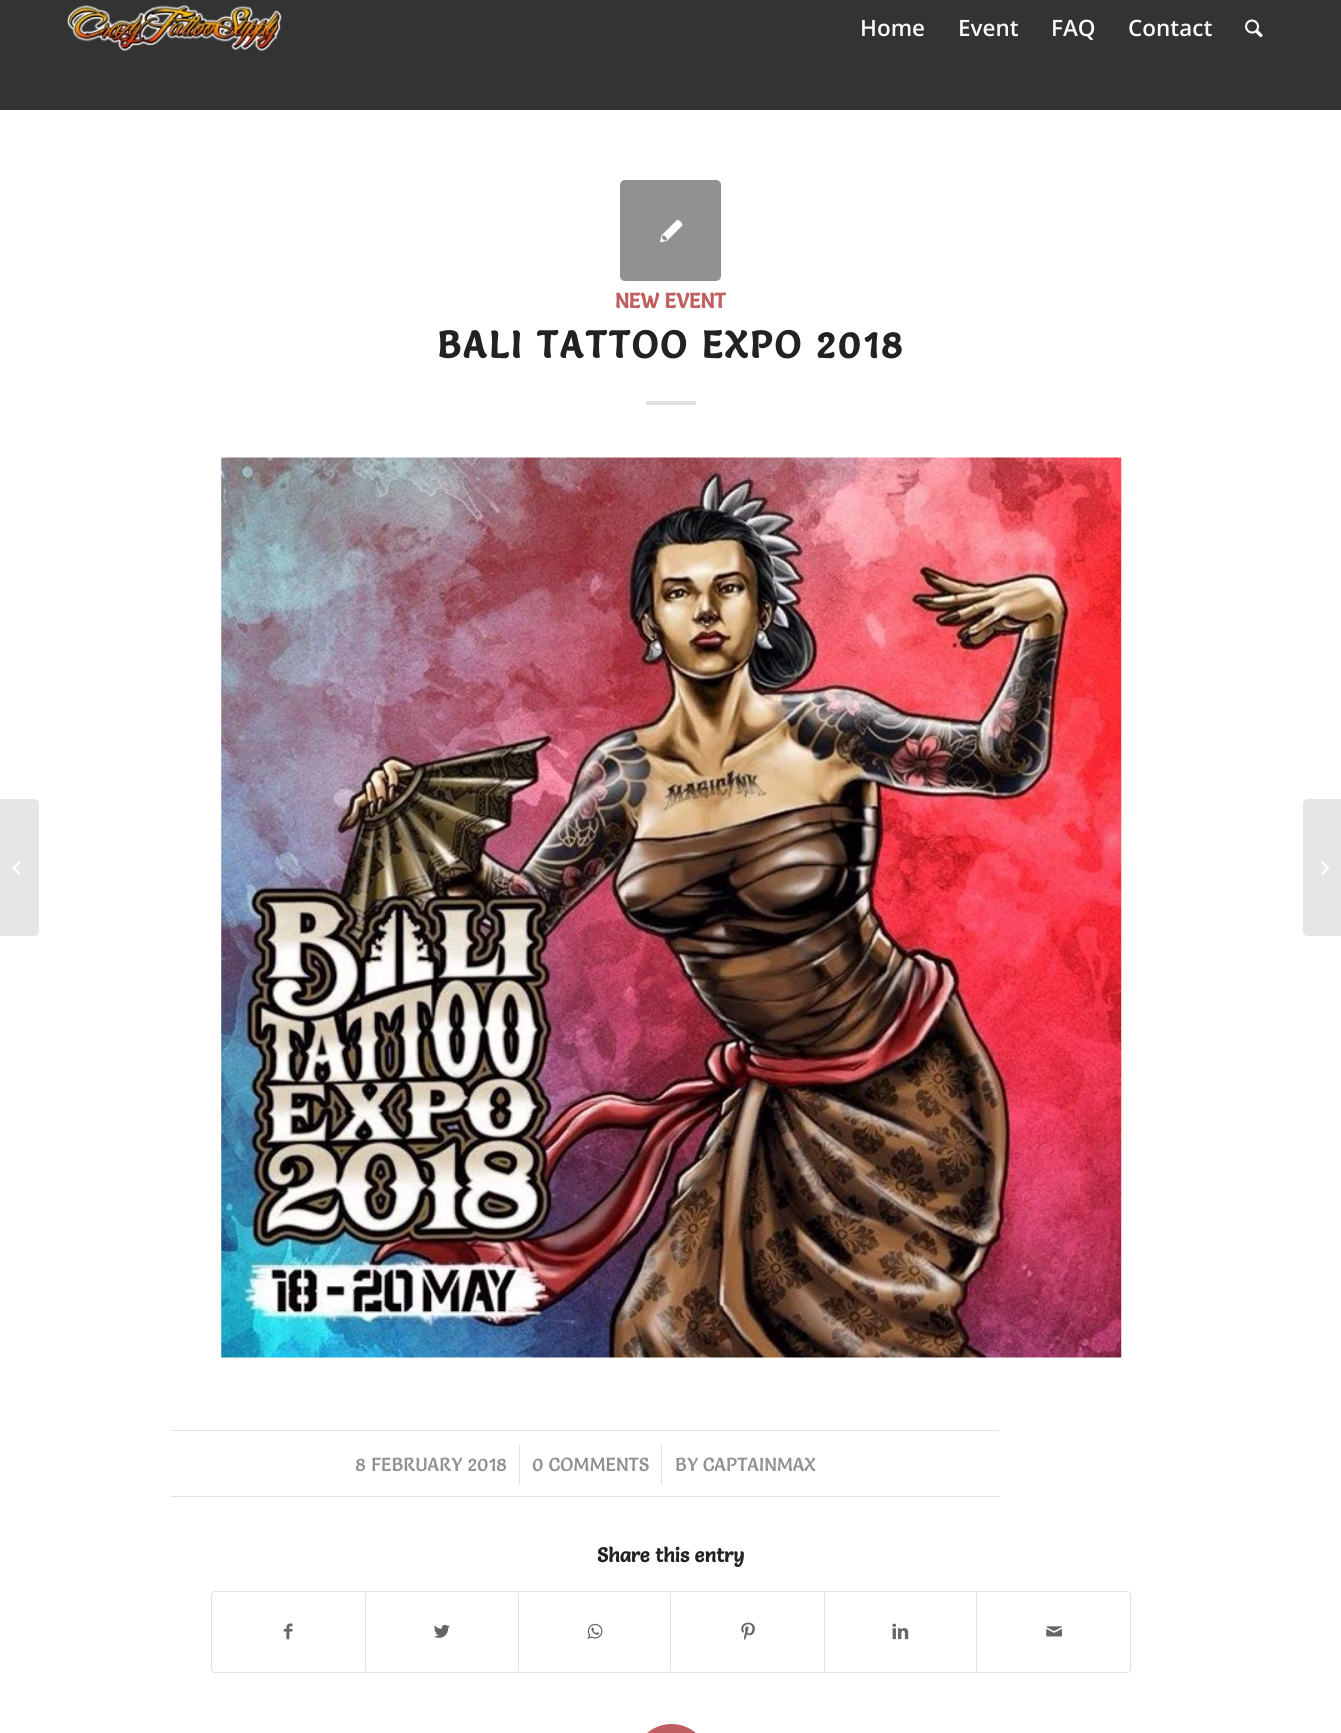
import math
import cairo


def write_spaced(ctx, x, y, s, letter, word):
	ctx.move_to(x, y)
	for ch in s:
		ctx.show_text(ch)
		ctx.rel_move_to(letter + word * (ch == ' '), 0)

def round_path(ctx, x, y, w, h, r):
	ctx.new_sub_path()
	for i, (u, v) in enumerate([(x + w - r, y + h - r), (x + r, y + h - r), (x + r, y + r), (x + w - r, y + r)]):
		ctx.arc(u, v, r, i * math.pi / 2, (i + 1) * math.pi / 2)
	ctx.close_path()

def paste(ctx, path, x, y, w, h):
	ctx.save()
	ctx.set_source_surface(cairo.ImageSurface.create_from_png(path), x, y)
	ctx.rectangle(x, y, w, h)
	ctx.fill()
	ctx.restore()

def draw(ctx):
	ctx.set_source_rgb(0.2, 0.2, 0.2)
	ctx.paint()
	paste(ctx, 'media/1.png', 67, 4, 215, 47)
	ctx.select_font_face('Open Sans SemiBold')
	ctx.set_font_size(22.5)
	ctx.set_source_rgb(0.973, 0.973, 0.973)
	for x, y, s in [
		(860, 36, 'Home'),
		(958, 36, 'Event'),
		(1051, 36, 'FAQ'),
		(1128, 36, 'Contact'),
	]:
		ctx.move_to(x, y)
		ctx.show_text(s)
	paste(ctx, 'media/2.png', 1245, 19, 18, 19)
	ctx.set_source_rgb(1, 1, 1)
	ctx.rectangle(0, 110, 1341, 1623)
	ctx.fill()
	ctx.set_source_rgb(0.902, 0.902, 0.902)
	ctx.new_path()
	ctx.move_to(0, 799)
	ctx.line_to(34, 799)
	ctx.curve_to(37, 799, 39, 801, 39, 804)
	ctx.line_to(39, 931)
	ctx.curve_to(39, 934, 37, 936, 34, 936)
	ctx.line_to(0, 936)
	ctx.close_path()
	ctx.fill()
	paste(ctx, 'media/3.png', 12, 861, 9, 14)
	ctx.set_source_rgb(0.569, 0.569, 0.569)
	round_path(ctx, 620, 180, 101, 101, 5)
	ctx.fill()
	paste(ctx, 'media/4.png', 660, 219, 23, 24)
	ctx.select_font_face('Salsa', cairo.FONT_SLANT_NORMAL, cairo.FONT_WEIGHT_BOLD)
	ctx.set_font_size(20.75)
	ctx.set_source_rgb(0.753, 0.373, 0.373)
	ctx.move_to(615, 308)
	ctx.show_text('NEW EVENT')
	ctx.set_font_size(37.5)
	ctx.set_source_rgb(0.133, 0.133, 0.133)
	write_spaced(ctx, 437, 358, 'BALI TATTOO EXPO 2018', 2.5, 0)
	ctx.set_source_rgb(0.882, 0.882, 0.882)
	ctx.rectangle(646, 401, 50, 4)
	ctx.fill()
	paste(ctx, 'media/5.png', 221, 457, 901, 901)
	ctx.rectangle(171, 1430, 828, 1)
	ctx.fill()
	ctx.rectangle(171, 1496, 828, 1)
	ctx.fill()
	ctx.select_font_face('Salsa')
	ctx.set_font_size(18.75)
	ctx.set_source_rgb(0.569, 0.569, 0.569)
	ctx.move_to(355, 1471)
	ctx.show_text('8 FEBRUARY 2018')
	ctx.set_source_rgb(0.882, 0.882, 0.882)
	ctx.rectangle(519, 1445, 1, 39)
	ctx.fill()
	ctx.set_source_rgb(0.569, 0.569, 0.569)
	ctx.move_to(532, 1471)
	ctx.show_text('0 COMMENTS')
	ctx.set_source_rgb(0.882, 0.882, 0.882)
	ctx.rectangle(661, 1445, 1, 39)
	ctx.fill()
	ctx.set_source_rgb(0.569, 0.569, 0.569)
	ctx.move_to(675, 1471)
	ctx.show_text('BY CAPTAINMAX')
	ctx.select_font_face('Salsa', cairo.FONT_SLANT_NORMAL, cairo.FONT_WEIGHT_BOLD)
	ctx.set_font_size(20)
	ctx.set_source_rgb(0.133, 0.133, 0.133)
	ctx.move_to(597, 1562)
	ctx.show_text('Share this entry')
	round_path(ctx, 211.5, 1591.5, 919, 81, 3.5)
	ctx.set_source_rgb(0.882, 0.882, 0.882)
	ctx.set_line_width(1)
	ctx.stroke()
	paste(ctx, 'media/6.png', 283, 1623, 10, 17)
	ctx.rectangle(365, 1593, 1, 78)
	ctx.fill()
	paste(ctx, 'media/7.png', 434, 1624, 16, 14)
	ctx.rectangle(518, 1593, 1, 78)
	ctx.fill()
	paste(ctx, 'media/8.png', 587, 1623, 16, 16)
	ctx.rectangle(670, 1593, 1, 78)
	ctx.fill()
	paste(ctx, 'media/9.png', 741, 1622, 14, 18)
	ctx.rectangle(824, 1593, 1, 78)
	ctx.fill()
	paste(ctx, 'media/10.png', 892, 1623, 17, 17)
	ctx.rectangle(976, 1593, 1, 78)
	ctx.fill()
	paste(ctx, 'media/11.png', 1046, 1626, 16, 11)
	ctx.set_source_rgb(0.753, 0.373, 0.373)
	round_path(ctx, 634, 1724, 75, 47, 37.5)
	ctx.fill()
	ctx.set_source_rgb(0.902, 0.902, 0.902)
	ctx.new_path()
	ctx.move_to(1308, 799)
	ctx.line_to(1341, 799)
	ctx.line_to(1341, 936)
	ctx.line_to(1308, 936)
	ctx.curve_to(1305, 936, 1303, 934, 1303, 931)
	ctx.line_to(1303, 804)
	ctx.curve_to(1303, 801, 1305, 799, 1308, 799)
	ctx.close_path()
	ctx.fill()
	paste(ctx, 'media/12.png', 1321, 861, 8, 14)


surface = cairo.ImageSurface(cairo.FORMAT_RGB24, 1341, 1733)
ctx = cairo.Context(surface)
options = cairo.FontOptions()
options.set_hint_metrics(cairo.HINT_METRICS_OFF)
options.set_hint_style(cairo.HINT_STYLE_NONE)
ctx.set_font_options(options)
ctx.set_miter_limit(4)
draw(ctx)
surface.write_to_png('image.png')
